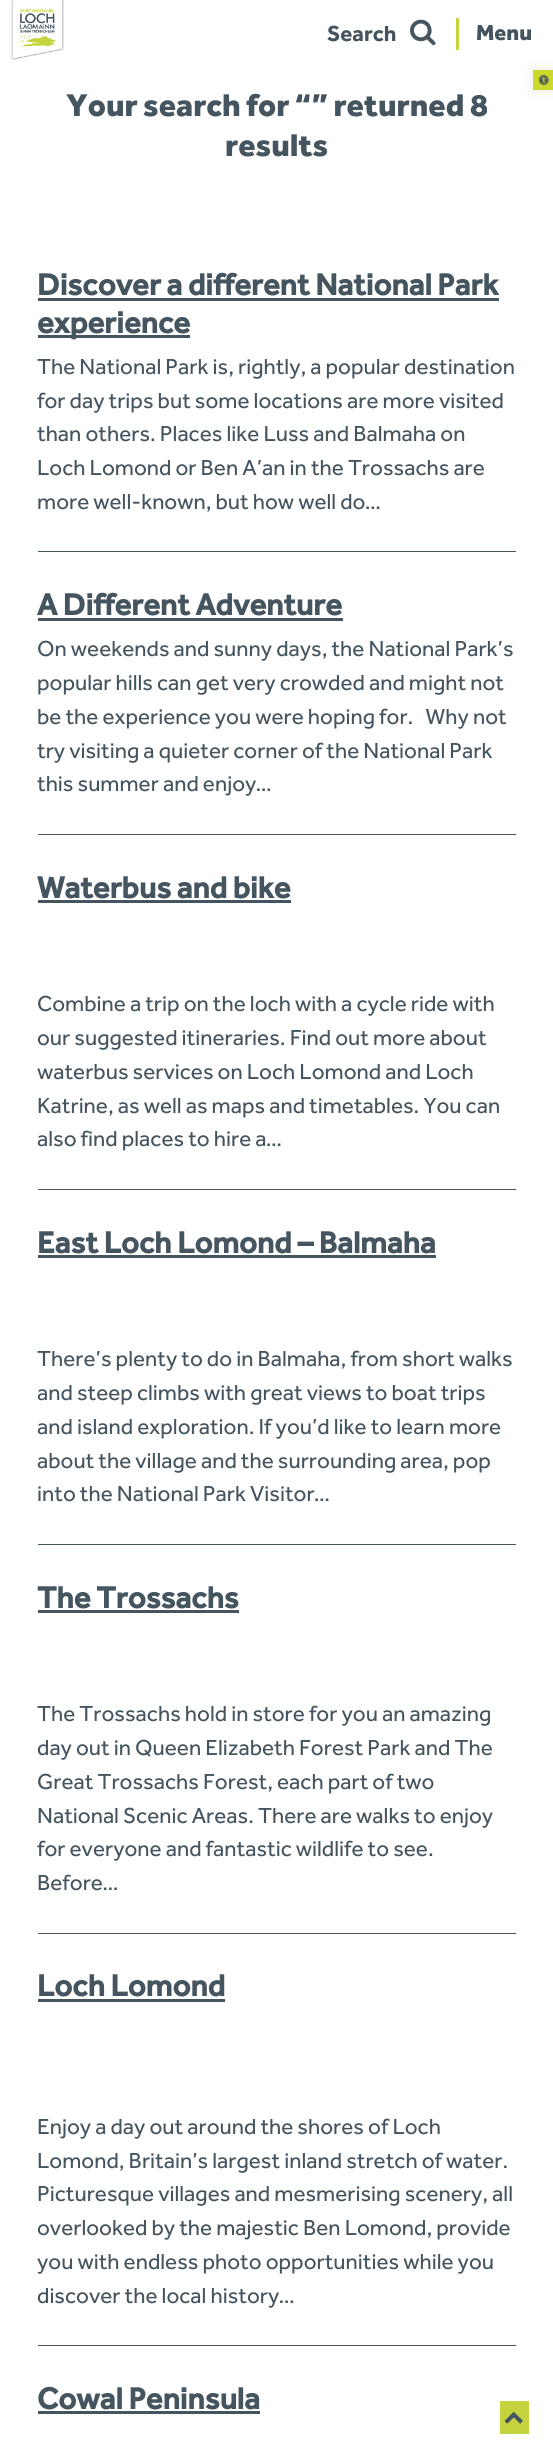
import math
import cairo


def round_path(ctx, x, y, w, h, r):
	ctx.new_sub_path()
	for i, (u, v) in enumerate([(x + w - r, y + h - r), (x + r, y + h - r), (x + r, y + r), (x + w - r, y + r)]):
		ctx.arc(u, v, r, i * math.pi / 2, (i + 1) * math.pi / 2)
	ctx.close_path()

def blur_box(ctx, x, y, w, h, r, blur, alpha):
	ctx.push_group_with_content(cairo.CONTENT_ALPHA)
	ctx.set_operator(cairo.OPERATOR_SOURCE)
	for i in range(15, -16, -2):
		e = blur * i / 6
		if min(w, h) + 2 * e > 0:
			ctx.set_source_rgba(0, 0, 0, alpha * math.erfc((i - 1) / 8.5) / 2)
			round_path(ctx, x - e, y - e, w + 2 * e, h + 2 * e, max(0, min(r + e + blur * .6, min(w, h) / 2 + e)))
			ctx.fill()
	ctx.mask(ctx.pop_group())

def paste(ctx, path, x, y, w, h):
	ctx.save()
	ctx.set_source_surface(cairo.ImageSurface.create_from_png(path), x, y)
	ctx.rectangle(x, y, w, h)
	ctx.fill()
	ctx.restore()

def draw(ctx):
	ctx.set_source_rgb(1, 1, 1)
	ctx.paint()
	paste(ctx, 'media/1.png', 11, 0, 53, 60)
	paste(ctx, 'media/2.png', 11, 0, 53, 60)
	ctx.select_font_face('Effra', cairo.FONT_SLANT_NORMAL, cairo.FONT_WEIGHT_BOLD)
	ctx.set_font_size(22.5)
	ctx.set_source_rgb(0.271, 0.333, 0.376)
	ctx.move_to(327, 41)
	ctx.show_text('Search')
	paste(ctx, 'media/3.png', 410, 19, 26, 27)
	ctx.set_source_rgb(0.773, 0.827, 0.243)
	ctx.rectangle(456, 18, 3, 32)
	ctx.fill()
	ctx.select_font_face('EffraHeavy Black')
	ctx.set_source_rgb(0.271, 0.333, 0.376)
	ctx.move_to(476, 40)
	ctx.show_text('Menu')
	ctx.set_font_size(32.5)
	ctx.move_to(66, 116)
	ctx.show_text('Your search for “” returned 8')
	ctx.move_to(225, 156)
	ctx.show_text('results')
	ctx.rectangle(38, 551, 478, 1)
	ctx.fill()
	ctx.select_font_face('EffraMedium', cairo.FONT_SLANT_NORMAL, cairo.FONT_WEIGHT_BOLD)
	ctx.set_font_size(31.25)
	ctx.move_to(37, 295)
	ctx.show_text('Discover a different National Park')
	ctx.rectangle(38, 298, 461, 3)
	ctx.fill()
	ctx.rectangle(38, 335, 152, 3)
	ctx.fill()
	ctx.move_to(37, 333)
	ctx.show_text('experience')
	ctx.select_font_face('Effra')
	ctx.set_font_size(22.5)
	for x, y, s in [
		(37, 374, 'The National Park is, rightly, a popular destination'),
		(37, 408, 'for day trips but some locations are more visited'),
		(37, 441, 'than others. Places like Luss and Balmaha on'),
		(37, 475, 'Loch Lomond or Ben A’an in the Trossachs are'),
		(37, 509, 'more well-known, but how well do…'),
	]:
		ctx.move_to(x, y)
		ctx.show_text(s)
	ctx.rectangle(38, 834, 478, 1)
	ctx.fill()
	ctx.select_font_face('EffraMedium', cairo.FONT_SLANT_NORMAL, cairo.FONT_WEIGHT_BOLD)
	ctx.set_font_size(31.25)
	ctx.move_to(37, 615)
	ctx.show_text('A Different Adventure')
	ctx.rectangle(38, 618, 305, 3)
	ctx.fill()
	ctx.select_font_face('Effra')
	ctx.set_font_size(22.5)
	for x, y, s in [
		(37, 656, 'On weekends and sunny days, the National Park’s'),
		(37, 690, 'popular hills can get very crowded and might not'),
		(37, 724, 'be the experience you were hoping for.   Why not'),
		(37, 758, 'try visiting a quieter corner of the National Park'),
		(37, 791, 'this summer and enjoy…'),
	]:
		ctx.move_to(x, y)
		ctx.show_text(s)
	ctx.rectangle(38, 1189, 478, 1)
	ctx.fill()
	ctx.select_font_face('EffraMedium', cairo.FONT_SLANT_NORMAL, cairo.FONT_WEIGHT_BOLD)
	ctx.set_font_size(31.25)
	ctx.move_to(37, 898)
	ctx.show_text('Waterbus and bike')
	ctx.rectangle(38, 900, 253, 3)
	ctx.fill()
	ctx.select_font_face('Effra')
	ctx.set_font_size(22.5)
	for x, y, s in [
		(37, 1011, 'Combine a trip on the loch with a cycle ride with'),
		(37, 1045, 'our suggested itineraries. Find out more about'),
		(37, 1079, 'waterbus services on Loch Lomond and Loch'),
		(37, 1113, 'Katrine, as well as maps and timetables. You can'),
		(37, 1146, 'also find places to hire a…'),
	]:
		ctx.move_to(x, y)
		ctx.show_text(s)
	ctx.rectangle(38, 1544, 478, 1)
	ctx.fill()
	ctx.select_font_face('EffraMedium', cairo.FONT_SLANT_NORMAL, cairo.FONT_WEIGHT_BOLD)
	ctx.set_font_size(31.25)
	ctx.move_to(37, 1253)
	ctx.show_text('East Loch Lomond – Balmaha')
	ctx.rectangle(38, 1255, 398, 3)
	ctx.fill()
	ctx.select_font_face('Effra')
	ctx.set_font_size(22.5)
	for x, y, s in [
		(37, 1366, 'There’s plenty to do in Balmaha, from short walks'),
		(37, 1400, 'and steep climbs with great views to boat trips'),
		(37, 1434, 'and island exploration. If you’d like to learn more'),
		(37, 1468, 'about the village and the surrounding area, pop'),
		(37, 1501, 'into the National Park Visitor…'),
	]:
		ctx.move_to(x, y)
		ctx.show_text(s)
	ctx.rectangle(38, 1933, 478, 1)
	ctx.fill()
	ctx.select_font_face('EffraMedium', cairo.FONT_SLANT_NORMAL, cairo.FONT_WEIGHT_BOLD)
	ctx.set_font_size(31.25)
	ctx.move_to(37, 1608)
	ctx.show_text('The Trossachs')
	ctx.rectangle(38, 1610, 201, 3)
	ctx.fill()
	ctx.select_font_face('Effra')
	ctx.set_font_size(22.5)
	for x, y, s in [
		(37, 1721, 'The Trossachs hold in store for you an amazing'),
		(37, 1755, 'day out in Queen Elizabeth Forest Park and The'),
		(37, 1789, 'Great Trossachs Forest, each part of two'),
		(37, 1823, 'National Scenic Areas. There are walks to enjoy'),
		(37, 1856, 'for everyone and fantastic wildlife to see.'),
		(37, 1890, 'Before…'),
	]:
		ctx.move_to(x, y)
		ctx.show_text(s)
	ctx.rectangle(38, 2345, 478, 1)
	ctx.fill()
	ctx.select_font_face('EffraMedium', cairo.FONT_SLANT_NORMAL, cairo.FONT_WEIGHT_BOLD)
	ctx.set_font_size(31.25)
	ctx.move_to(37, 1996)
	ctx.show_text('Loch Lomond')
	ctx.rectangle(38, 1999, 187, 3)
	ctx.fill()
	ctx.select_font_face('Effra')
	ctx.set_font_size(22.5)
	for x, y, s in [
		(37, 2134, 'Enjoy a day out around the shores of Loch'),
		(37, 2168, 'Lomond, Britain’s largest inland stretch of water.'),
		(37, 2201, 'Picturesque villages and mesmerising scenery, all'),
		(37, 2235, 'overlooked by the majestic Ben Lomond, provide'),
		(37, 2269, 'you with endless photo opportunities while you'),
		(37, 2303, 'discover the local history…'),
	]:
		ctx.move_to(x, y)
		ctx.show_text(s)
	ctx.select_font_face('EffraMedium', cairo.FONT_SLANT_NORMAL, cairo.FONT_WEIGHT_BOLD)
	ctx.set_font_size(31.25)
	ctx.move_to(37, 2409)
	ctx.show_text('Cowal Peninsula')
	ctx.rectangle(38, 2411, 222, 3)
	ctx.fill()
	ctx.set_source_rgb(0.773, 0.827, 0.243)
	ctx.rectangle(500, 2401, 29, 33)
	ctx.fill()
	paste(ctx, 'media/4.png', 504, 2412, 19, 12)
	ctx.set_source_rgb(0, 0, 0)
	blur_box(ctx, 533, 70, 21, 20, 0, 6, 0.1)
	ctx.set_source_rgb(0.796, 0.847, 0.173)
	ctx.rectangle(533, 70, 20, 20)
	ctx.fill()
	paste(ctx, 'media/5.png', 539, 75, 10, 10)


surface = cairo.ImageSurface(cairo.FORMAT_RGB24, 553, 2458)
ctx = cairo.Context(surface)
options = cairo.FontOptions()
options.set_hint_metrics(cairo.HINT_METRICS_OFF)
options.set_hint_style(cairo.HINT_STYLE_NONE)
ctx.set_font_options(options)
ctx.set_miter_limit(4)
draw(ctx)
surface.write_to_png('image.png')
